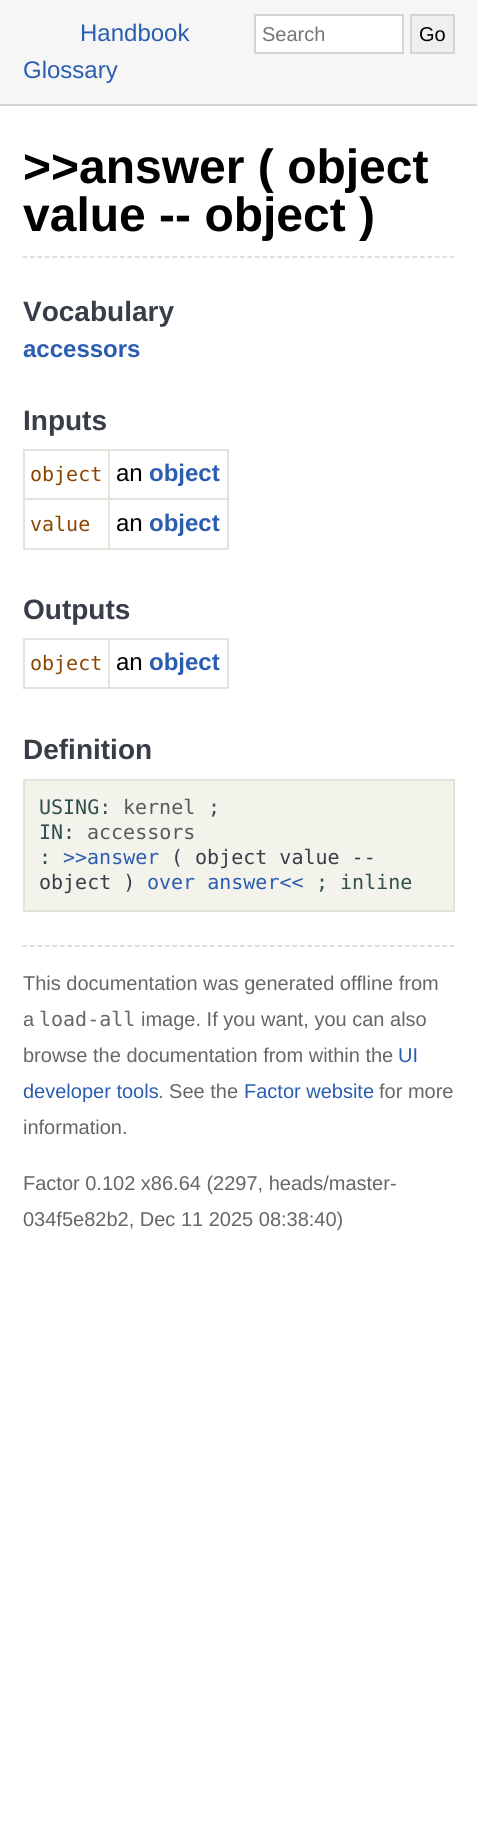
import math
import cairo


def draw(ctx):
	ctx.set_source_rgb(1, 1, 1)
	ctx.paint()
	ctx.set_source_rgb(0.961, 0.961, 0.961)
	ctx.rectangle(0, 0, 477, 104)
	ctx.fill()
	ctx.set_source_rgb(0.835, 0.835, 0.835)
	ctx.rectangle(0, 104, 477, 2)
	ctx.fill()
	ctx.select_font_face('Liberation Sans')
	ctx.set_font_size(24)
	ctx.set_source_rgb(0.165, 0.365, 0.69)
	ctx.move_to(80, 41)
	ctx.show_text('Handbook')
	ctx.set_source_rgb(1, 1, 1)
	ctx.rectangle(255, 15, 148, 38)
	ctx.fill_preserve()
	ctx.set_source_rgb(0.835, 0.835, 0.835)
	ctx.stroke()
	ctx.set_font_size(20)
	ctx.set_source_rgb(0.459, 0.459, 0.459)
	ctx.move_to(262, 41)
	ctx.show_text('Search')
	ctx.set_source_rgb(0.937, 0.937, 0.937)
	ctx.rectangle(411, 15, 43, 38)
	ctx.fill_preserve()
	ctx.set_source_rgb(0.835, 0.835, 0.835)
	ctx.stroke()
	ctx.set_source_rgb(0, 0, 0)
	ctx.move_to(419, 41)
	ctx.show_text('Go')
	ctx.set_font_size(24)
	ctx.set_source_rgb(0.165, 0.365, 0.69)
	ctx.move_to(23, 78)
	ctx.show_text('Glossary')
	ctx.new_path()
	ctx.move_to(22.5, 257)
	ctx.line_to(454.5, 257)
	ctx.set_source_rgb(0.835, 0.835, 0.835)
	ctx.set_line_width(1.5)
	ctx.set_dash([4.5, 3])
	ctx.stroke()
	ctx.select_font_face('Liberation Sans', cairo.FONT_SLANT_NORMAL, cairo.FONT_WEIGHT_BOLD)
	ctx.set_font_size(48)
	ctx.set_source_rgb(0, 0, 0)
	ctx.move_to(23, 183)
	ctx.show_text('>>answer ( object')
	ctx.move_to(23, 231)
	ctx.show_text('value -- object )')
	ctx.set_font_size(28)
	ctx.set_source_rgb(0.216, 0.243, 0.282)
	ctx.move_to(23, 321)
	ctx.show_text('Vocabulary')
	ctx.set_font_size(24)
	ctx.set_source_rgb(0.165, 0.365, 0.69)
	ctx.move_to(23, 357)
	ctx.show_text('accessors')
	ctx.set_font_size(28)
	ctx.set_source_rgb(0.216, 0.243, 0.282)
	ctx.move_to(23, 430)
	ctx.show_text('Inputs')
	ctx.set_source_rgb(0.89, 0.886, 0.859)
	ctx.rectangle(108, 449, 120, 2)
	ctx.rectangle(108, 498, 120, 2)
	ctx.rectangle(227, 498, 2, 51)
	ctx.rectangle(108, 548, 120, 2)
	ctx.rectangle(108, 498, 2, 51)
	ctx.rectangle(23, 498, 87, 2)
	ctx.rectangle(108, 449, 2, 51)
	ctx.rectangle(23, 449, 87, 2)
	ctx.rectangle(23, 548, 87, 2)
	ctx.rectangle(23, 498, 2, 51)
	ctx.rectangle(23, 449, 2, 51)
	ctx.fill()
	ctx.select_font_face('DejaVu Sans Mono')
	ctx.set_font_size(20)
	ctx.set_source_rgb(0.545, 0.271, 0)
	ctx.move_to(30, 481)
	ctx.show_text('object')
	ctx.set_source_rgb(0.89, 0.886, 0.859)
	ctx.rectangle(227, 449, 2, 51)
	ctx.fill()
	ctx.select_font_face('Liberation Sans')
	ctx.set_font_size(24)
	ctx.set_source_rgb(0, 0, 0)
	ctx.move_to(116, 481)
	ctx.show_text('an')
	ctx.select_font_face('Liberation Sans', cairo.FONT_SLANT_NORMAL, cairo.FONT_WEIGHT_BOLD)
	ctx.set_source_rgb(0.165, 0.365, 0.69)
	ctx.move_to(149, 481)
	ctx.show_text('object')
	ctx.select_font_face('DejaVu Sans Mono')
	ctx.set_font_size(20)
	ctx.set_source_rgb(0.545, 0.271, 0)
	ctx.move_to(30, 531)
	ctx.show_text('value')
	ctx.select_font_face('Liberation Sans')
	ctx.set_font_size(24)
	ctx.set_source_rgb(0, 0, 0)
	ctx.move_to(116, 531)
	ctx.show_text('an')
	ctx.select_font_face('Liberation Sans', cairo.FONT_SLANT_NORMAL, cairo.FONT_WEIGHT_BOLD)
	ctx.set_source_rgb(0.165, 0.365, 0.69)
	ctx.move_to(149, 531)
	ctx.show_text('object')
	ctx.set_font_size(28)
	ctx.set_source_rgb(0.216, 0.243, 0.282)
	ctx.move_to(23, 619)
	ctx.show_text('Outputs')
	ctx.set_source_rgb(0.89, 0.886, 0.859)
	ctx.rectangle(108, 638, 120, 2)
	ctx.rectangle(227, 638, 2, 51)
	ctx.rectangle(108, 687, 120, 2)
	ctx.rectangle(108, 638, 2, 51)
	ctx.rectangle(23, 638, 87, 2)
	ctx.rectangle(23, 687, 87, 2)
	ctx.rectangle(23, 638, 2, 51)
	ctx.fill()
	ctx.select_font_face('DejaVu Sans Mono')
	ctx.set_font_size(20)
	ctx.set_source_rgb(0.545, 0.271, 0)
	ctx.move_to(30, 670)
	ctx.show_text('object')
	ctx.select_font_face('Liberation Sans')
	ctx.set_font_size(24)
	ctx.set_source_rgb(0, 0, 0)
	ctx.move_to(116, 670)
	ctx.show_text('an')
	ctx.select_font_face('Liberation Sans', cairo.FONT_SLANT_NORMAL, cairo.FONT_WEIGHT_BOLD)
	ctx.set_source_rgb(0.165, 0.365, 0.69)
	ctx.move_to(149, 670)
	ctx.show_text('object')
	ctx.set_font_size(28)
	ctx.set_source_rgb(0.216, 0.243, 0.282)
	ctx.move_to(23, 759)
	ctx.show_text('Definition')
	ctx.set_source_rgb(0.953, 0.949, 0.918)
	ctx.rectangle(24, 780, 430, 131)
	ctx.fill_preserve()
	ctx.set_source_rgb(0.89, 0.886, 0.859)
	ctx.set_line_width(2)
	ctx.set_dash([])
	ctx.stroke()
	ctx.select_font_face('DejaVu Sans Mono')
	ctx.set_font_size(20)
	ctx.set_source_rgb(0.184, 0.31, 0.31)
	ctx.move_to(39, 814)
	ctx.show_text('USING:')
	ctx.set_source_rgb(0.349, 0.349, 0.349)
	ctx.move_to(123, 814)
	ctx.show_text('kernel')
	ctx.set_source_rgb(0.184, 0.31, 0.31)
	ctx.move_to(208, 814)
	ctx.show_text(';')
	ctx.move_to(39, 839)
	ctx.show_text('IN:')
	ctx.set_source_rgb(0.349, 0.349, 0.349)
	ctx.move_to(87, 839)
	ctx.show_text('accessors')
	ctx.set_source_rgb(0.184, 0.31, 0.31)
	ctx.move_to(39, 864)
	ctx.show_text(':')
	ctx.set_source_rgb(0.165, 0.365, 0.69)
	ctx.move_to(63, 864)
	ctx.show_text('>>answer')
	ctx.set_source_rgb(0.216, 0.243, 0.282)
	ctx.move_to(171, 864)
	ctx.show_text('( object value --')
	ctx.move_to(39, 889)
	ctx.show_text('object )')
	ctx.set_source_rgb(0.165, 0.365, 0.69)
	ctx.move_to(147, 889)
	ctx.show_text('over answer<<')
	ctx.set_source_rgb(0.184, 0.31, 0.31)
	ctx.move_to(316, 889)
	ctx.show_text('; inline')
	ctx.new_path()
	ctx.move_to(22.5, 946)
	ctx.line_to(454.5, 946)
	ctx.set_source_rgb(0.835, 0.835, 0.835)
	ctx.set_line_width(1.5)
	ctx.set_dash([4.5, 3])
	ctx.stroke()
	ctx.select_font_face('Liberation Sans')
	ctx.set_source_rgb(0.4, 0.4, 0.4)
	ctx.move_to(23, 990)
	ctx.show_text('This documentation was generated offline from')
	ctx.move_to(23, 1026)
	ctx.show_text('a')
	ctx.select_font_face('DejaVu Sans Mono')
	ctx.move_to(39, 1026)
	ctx.show_text('load-all')
	ctx.select_font_face('Liberation Sans')
	ctx.move_to(141, 1026)
	ctx.show_text('image. If you want, you can also')
	ctx.move_to(23, 1062)
	ctx.show_text('browse the documentation from within the')
	ctx.set_source_rgb(0.165, 0.365, 0.69)
	ctx.move_to(398, 1062)
	ctx.show_text('UI')
	ctx.move_to(23, 1098)
	ctx.show_text('developer tools')
	ctx.set_source_rgb(0.4, 0.4, 0.4)
	ctx.move_to(158, 1098)
	ctx.show_text('. See the')
	ctx.set_source_rgb(0.165, 0.365, 0.69)
	ctx.move_to(244, 1098)
	ctx.show_text('Factor website')
	ctx.set_source_rgb(0.4, 0.4, 0.4)
	for x, y, s in [
		(379, 1098, 'for more'),
		(23, 1134, 'information.'),
		(23, 1190, 'Factor 0.102 x86.64 (2297, heads/master-'),
		(23, 1226, '034f5e82b2, Dec 11 2025 08:38:40)'),
	]:
		ctx.move_to(x, y)
		ctx.show_text(s)


surface = cairo.ImageSurface(cairo.FORMAT_RGB24, 477, 1843)
ctx = cairo.Context(surface)
options = cairo.FontOptions()
options.set_hint_metrics(cairo.HINT_METRICS_OFF)
options.set_hint_style(cairo.HINT_STYLE_NONE)
ctx.set_font_options(options)
ctx.set_miter_limit(4)
draw(ctx)
surface.write_to_png('image.png')
